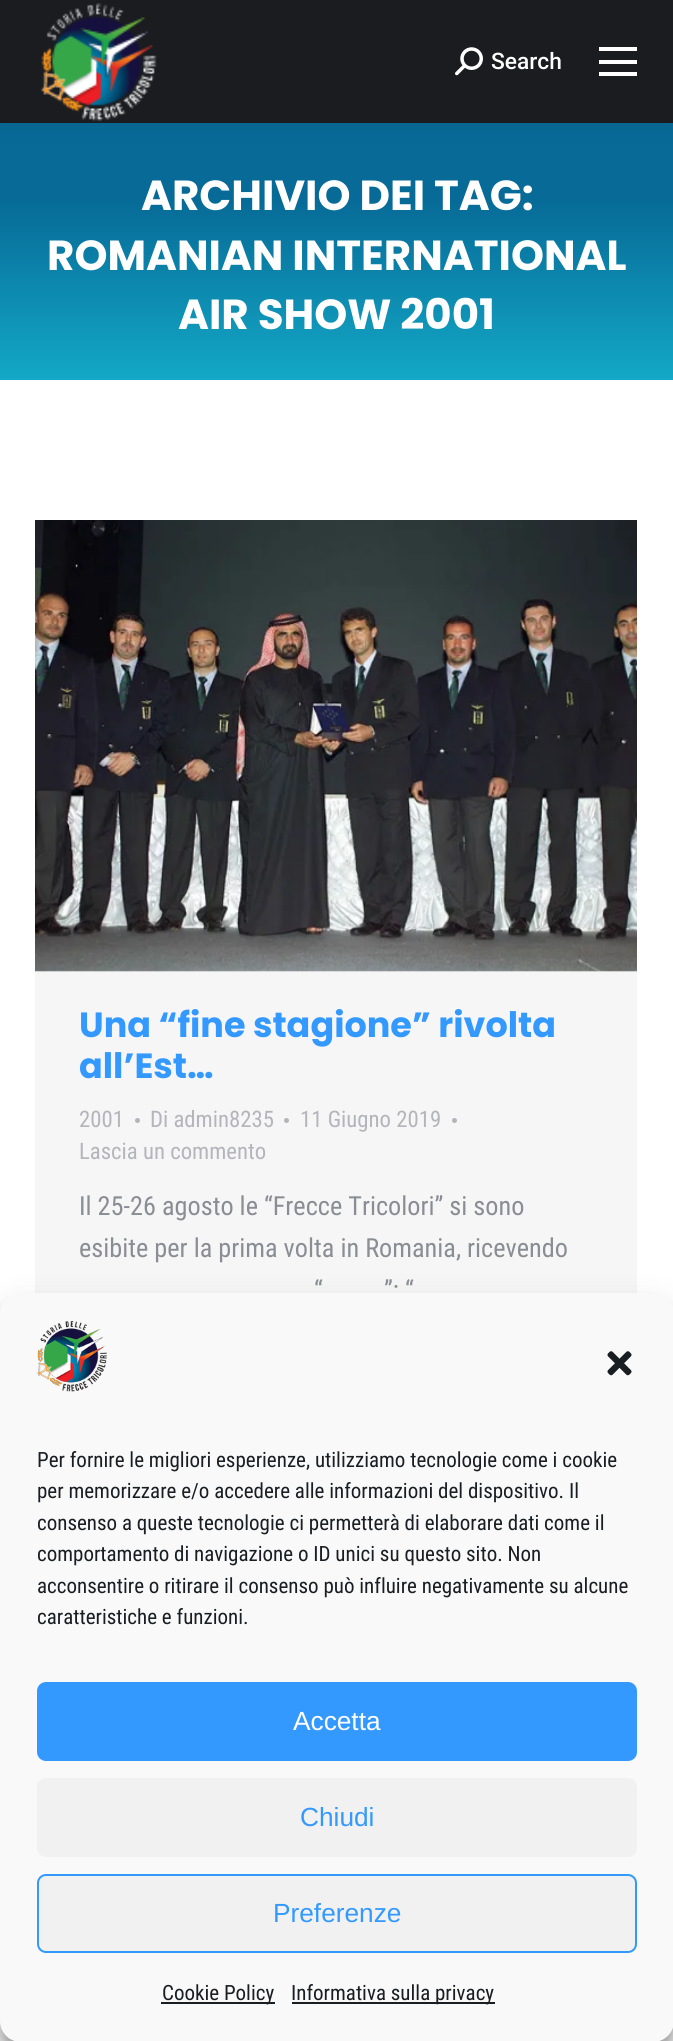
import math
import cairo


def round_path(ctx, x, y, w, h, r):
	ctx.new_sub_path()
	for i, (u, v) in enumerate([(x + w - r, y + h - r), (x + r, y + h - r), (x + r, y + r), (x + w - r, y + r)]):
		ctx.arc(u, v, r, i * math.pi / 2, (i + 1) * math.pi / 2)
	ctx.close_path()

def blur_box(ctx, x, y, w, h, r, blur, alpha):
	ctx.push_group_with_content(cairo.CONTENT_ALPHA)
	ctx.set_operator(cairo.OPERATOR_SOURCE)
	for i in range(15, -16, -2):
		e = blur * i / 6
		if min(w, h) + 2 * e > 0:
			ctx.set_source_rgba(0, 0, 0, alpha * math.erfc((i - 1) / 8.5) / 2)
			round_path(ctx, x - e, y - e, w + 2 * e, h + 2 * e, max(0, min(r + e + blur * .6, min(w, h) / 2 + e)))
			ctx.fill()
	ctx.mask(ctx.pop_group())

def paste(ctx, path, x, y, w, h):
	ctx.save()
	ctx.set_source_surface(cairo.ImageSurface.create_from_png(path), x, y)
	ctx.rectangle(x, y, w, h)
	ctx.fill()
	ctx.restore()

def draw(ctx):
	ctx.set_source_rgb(0.969, 0.969, 0.969)
	ctx.paint()
	ctx.set_source_rgb(1, 1, 1)
	ctx.rectangle(0, 380, 673, 934)
	ctx.fill()
	gradient = cairo.LinearGradient(337, 122, 337, 380)
	gradient.add_color_stop_rgba(0.3, 0.027, 0.416, 0.592, 1)
	gradient.add_color_stop_rgba(1, 0.075, 0.659, 0.776, 1)
	ctx.set_source(gradient)
	ctx.rectangle(0, 123, 673, 257)
	ctx.fill()
	ctx.set_source_rgb(0, 0, 0)
	blur_box(ctx, -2, -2, 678, 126, 0, 13, 0.07)
	ctx.set_source_rgb(0.102, 0.11, 0.125)
	ctx.rectangle(0, 0, 673, 123)
	ctx.fill()
	paste(ctx, 'media/1.png', 40, 3, 117, 119)
	paste(ctx, 'media/2.png', 455, 47, 28, 29)
	ctx.select_font_face('Roboto Medium')
	ctx.set_font_size(22.75)
	ctx.set_source_rgb(1, 1, 1)
	ctx.move_to(491, 69)
	ctx.show_text('Search')
	ctx.rectangle(599, 47, 38, 4)
	ctx.rectangle(599, 60, 38, 4)
	ctx.rectangle(599, 72, 38, 4)
	ctx.fill()
	ctx.select_font_face('Poppins', cairo.FONT_SLANT_NORMAL, cairo.FONT_WEIGHT_BOLD)
	ctx.set_font_size(42)
	for x, y, s in [
		(141, 210, 'ARCHIVIO DEI TAG:'),
		(47, 270, 'ROMANIAN INTERNATIONAL'),
		(178, 329, 'AIR SHOW 2001'),
	]:
		ctx.move_to(x, y)
		ctx.show_text(s)
	ctx.set_source_rgb(0.961, 0.961, 0.961)
	ctx.rectangle(35, 970, 602, 323)
	ctx.fill()
	paste(ctx, 'media/3.png', 35, 520, 602, 452)
	ctx.set_font_size(35)
	ctx.set_source_rgb(0.2, 0.6, 1)
	ctx.move_to(79, 1037)
	ctx.show_text('Una “fine stagione” rivolta')
	ctx.move_to(79, 1078)
	ctx.show_text('all’Est…')
	ctx.select_font_face('Roboto Condensed')
	ctx.set_font_size(22.75)
	ctx.set_source_rgb(0.706, 0.71, 0.733)
	ctx.move_to(79, 1127)
	ctx.show_text('2001')
	ctx.new_path()
	ctx.arc(137.5, 1120.5, 2.5, 0, 2 * math.pi)
	ctx.fill()
	ctx.move_to(150, 1127)
	ctx.show_text('Di admin8235')
	ctx.new_path()
	ctx.arc(286.5, 1120.5, 2.5, 0, 2 * math.pi)
	ctx.fill()
	ctx.move_to(300, 1127)
	ctx.show_text('11 Giugno 2019')
	ctx.new_path()
	ctx.arc(454.5, 1120.5, 2.5, 0, 2 * math.pi)
	ctx.fill()
	ctx.move_to(79, 1159)
	ctx.show_text('Lascia un commento')
	ctx.set_font_size(26.25)
	ctx.set_source_rgb(0.545, 0.553, 0.58)
	for x, y, s in [
		(79, 1215, 'Il 25-26 agosto le “Frecce Tricolori” si sono'),
		(79, 1257, 'esibite per la prima volta in Romania, ricevendo'),
		(314, 1299, '“'),
		(384, 1299, '”: “'),
	]:
		ctx.move_to(x, y)
		ctx.show_text(s)
	ctx.set_source_rgb(0, 0, 0)
	blur_box(ctx, 0, 1304, 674, 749, 21, 5, 0.23)
	blur_box(ctx, 0, 1311, 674, 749, 21, 17.5, 0.19)
	ctx.set_source_rgb(0.976, 0.976, 0.976)
	round_path(ctx, 1, 1294, 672, 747, 20)
	ctx.fill_preserve()
	ctx.stroke()
	paste(ctx, 'media/4.png', 36, 1321, 71, 71)
	paste(ctx, 'media/5.png', 607, 1351, 25, 25)
	ctx.set_font_size(21)
	ctx.set_source_rgb(0.098, 0.118, 0.137)
	for x, y, s in [
		(37, 1467, 'Per fornire le migliori esperienze, utilizziamo tecnologie come i cookie'),
		(37, 1498, 'per memorizzare e/o accedere alle informazioni del dispositivo. Il'),
		(37, 1530, 'consenso a queste tecnologie ci permetterà di elaborare dati come il'),
		(37, 1561, 'comportamento di navigazione o ID unici su questo sito. Non'),
		(37, 1593, 'acconsentire o ritirare il consenso può influire negativamente su alcune'),
		(37, 1624, 'caratteristiche e funzioni.'),
	]:
		ctx.move_to(x, y)
		ctx.show_text(s)
	ctx.set_source_rgb(0.2, 0.6, 1)
	round_path(ctx, 38, 1683, 598, 77, 8)
	ctx.fill_preserve()
	ctx.stroke()
	ctx.select_font_face('Liberation Sans')
	ctx.set_font_size(26.25)
	ctx.set_source_rgb(1, 1, 1)
	ctx.move_to(293, 1730)
	ctx.show_text('Accetta')
	ctx.set_source_rgb(0.945, 0.945, 0.945)
	round_path(ctx, 37, 1778, 600, 79, 9)
	ctx.fill()
	ctx.set_source_rgb(0.2, 0.6, 1)
	ctx.move_to(300, 1826)
	ctx.show_text('Chiudi')
	ctx.set_source_rgb(0.945, 0.945, 0.945)
	round_path(ctx, 38, 1875, 598, 77, 8)
	ctx.fill_preserve()
	ctx.set_source_rgb(0.2, 0.6, 1)
	ctx.stroke()
	ctx.move_to(273, 1922)
	ctx.show_text('Preferenze')
	ctx.set_source_rgb(0.098, 0.118, 0.137)
	ctx.rectangle(161, 2002, 114, 2)
	ctx.fill()
	ctx.select_font_face('Roboto Condensed')
	ctx.set_font_size(21)
	ctx.move_to(162, 2000)
	ctx.show_text('Cookie Policy')
	ctx.rectangle(292, 2002, 203, 2)
	ctx.fill()
	ctx.move_to(291, 2000)
	ctx.show_text('Informativa sulla privacy')


surface = cairo.ImageSurface(cairo.FORMAT_RGB24, 673, 2041)
ctx = cairo.Context(surface)
options = cairo.FontOptions()
options.set_hint_metrics(cairo.HINT_METRICS_OFF)
options.set_hint_style(cairo.HINT_STYLE_NONE)
ctx.set_font_options(options)
ctx.set_miter_limit(4)
draw(ctx)
surface.write_to_png('image.png')
